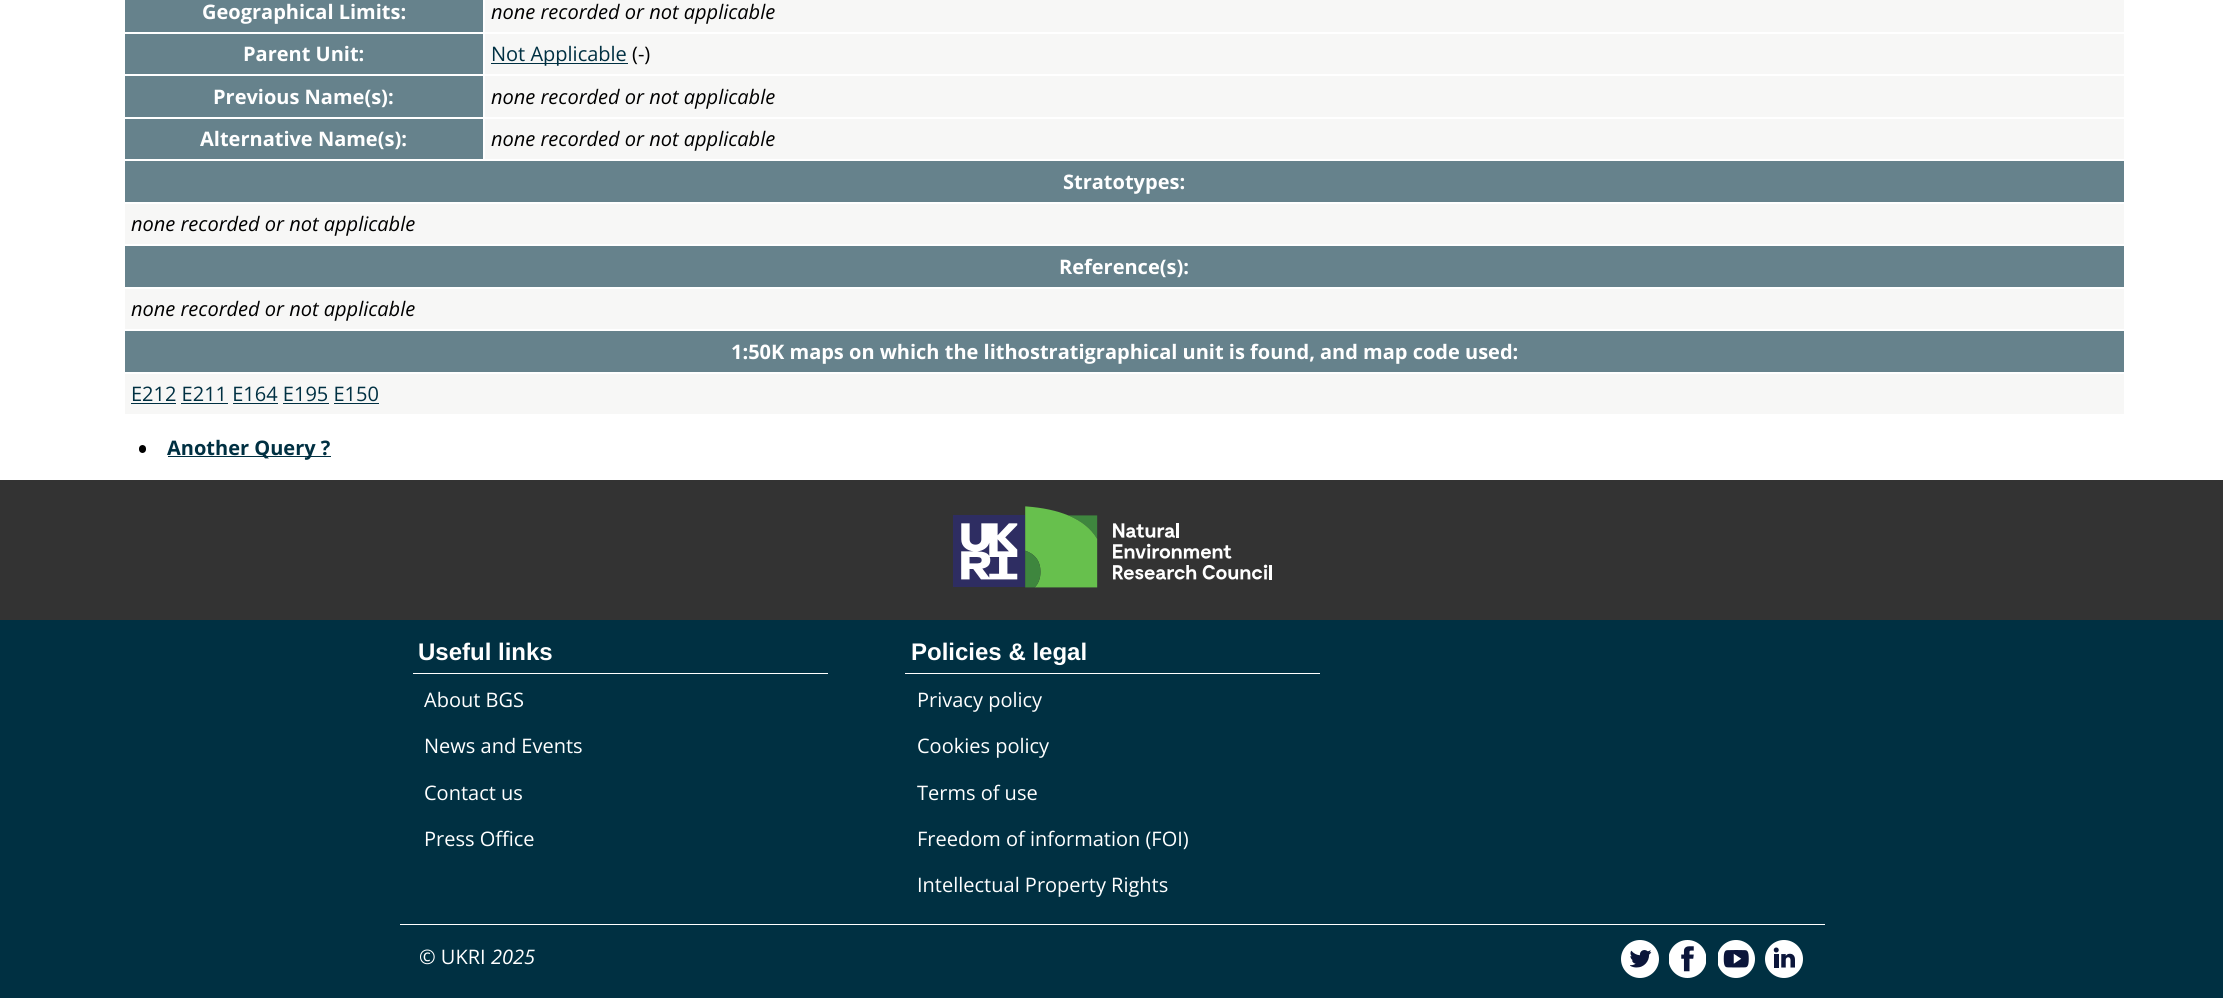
import math
import cairo


def round_path(ctx, x, y, w, h, r):
	ctx.new_sub_path()
	for i, (u, v) in enumerate([(x + w - r, y + h - r), (x + r, y + h - r), (x + r, y + r), (x + w - r, y + r)]):
		ctx.arc(u, v, r, i * math.pi / 2, (i + 1) * math.pi / 2)
	ctx.close_path()

def paste(ctx, path, x, y, w, h):
	ctx.save()
	ctx.set_source_surface(cairo.ImageSurface.create_from_png(path), x, y)
	ctx.rectangle(x, y, w, h)
	ctx.fill()
	ctx.restore()

def draw(ctx):
	ctx.set_source_rgb(1, 1, 1)
	ctx.paint()
	ctx.set_source_rgb(0.4, 0.51, 0.549)
	ctx.rectangle(125, 0, 358, 32)
	ctx.fill()
	ctx.select_font_face('Open Sans', cairo.FONT_SLANT_NORMAL, cairo.FONT_WEIGHT_BOLD)
	ctx.set_font_size(20)
	ctx.set_source_rgb(1, 1, 1)
	ctx.move_to(202, 19)
	ctx.show_text('Geographical Limits:')
	ctx.set_source_rgb(0.965, 0.965, 0.961)
	ctx.rectangle(485, 0, 1639, 32)
	ctx.fill()
	ctx.select_font_face('Open Sans', cairo.FONT_SLANT_ITALIC)
	ctx.set_source_rgb(0, 0, 0)
	ctx.move_to(491, 19)
	ctx.show_text('none recorded or not applicable')
	ctx.set_source_rgb(0.4, 0.51, 0.549)
	ctx.rectangle(125, 34, 358, 40)
	ctx.fill()
	ctx.select_font_face('Open Sans', cairo.FONT_SLANT_NORMAL, cairo.FONT_WEIGHT_BOLD)
	ctx.set_source_rgb(1, 1, 1)
	ctx.move_to(243, 61)
	ctx.show_text('Parent Unit:')
	ctx.set_source_rgb(0.965, 0.965, 0.961)
	ctx.rectangle(485, 34, 1639, 40)
	ctx.fill()
	ctx.set_source_rgb(0, 0.188, 0.259)
	ctx.rectangle(491, 63, 137, 1)
	ctx.fill()
	ctx.select_font_face('Open Sans')
	ctx.move_to(491, 61)
	ctx.show_text('Not Applicable')
	ctx.set_source_rgb(0, 0, 0)
	ctx.move_to(632, 61)
	ctx.show_text('(-)')
	ctx.set_source_rgb(0.4, 0.51, 0.549)
	ctx.rectangle(125, 76, 358, 41)
	ctx.fill()
	ctx.select_font_face('Open Sans', cairo.FONT_SLANT_NORMAL, cairo.FONT_WEIGHT_BOLD)
	ctx.set_source_rgb(1, 1, 1)
	ctx.move_to(213, 104)
	ctx.show_text('Previous Name(s):')
	ctx.set_source_rgb(0.965, 0.965, 0.961)
	ctx.rectangle(485, 76, 1639, 41)
	ctx.fill()
	ctx.select_font_face('Open Sans', cairo.FONT_SLANT_ITALIC)
	ctx.set_source_rgb(0, 0, 0)
	ctx.move_to(491, 104)
	ctx.show_text('none recorded or not applicable')
	ctx.set_source_rgb(0.4, 0.51, 0.549)
	ctx.rectangle(125, 119, 358, 40)
	ctx.fill()
	ctx.select_font_face('Open Sans', cairo.FONT_SLANT_NORMAL, cairo.FONT_WEIGHT_BOLD)
	ctx.set_source_rgb(1, 1, 1)
	ctx.move_to(200, 146)
	ctx.show_text('Alternative Name(s):')
	ctx.set_source_rgb(0.965, 0.965, 0.961)
	ctx.rectangle(485, 119, 1639, 40)
	ctx.fill()
	ctx.select_font_face('Open Sans', cairo.FONT_SLANT_ITALIC)
	ctx.set_source_rgb(0, 0, 0)
	ctx.move_to(491, 146)
	ctx.show_text('none recorded or not applicable')
	ctx.set_source_rgb(0.4, 0.51, 0.549)
	ctx.rectangle(125, 161, 1999, 41)
	ctx.fill()
	ctx.select_font_face('Open Sans', cairo.FONT_SLANT_NORMAL, cairo.FONT_WEIGHT_BOLD)
	ctx.set_source_rgb(1, 1, 1)
	ctx.move_to(1063, 189)
	ctx.show_text('Stratotypes:')
	ctx.set_source_rgb(0.965, 0.965, 0.961)
	ctx.rectangle(125, 204, 1999, 40)
	ctx.fill()
	ctx.select_font_face('Open Sans', cairo.FONT_SLANT_ITALIC)
	ctx.set_source_rgb(0, 0, 0)
	ctx.move_to(131, 231)
	ctx.show_text('none recorded or not applicable')
	ctx.set_source_rgb(0.4, 0.51, 0.549)
	ctx.rectangle(125, 246, 1999, 41)
	ctx.fill()
	ctx.select_font_face('Open Sans', cairo.FONT_SLANT_NORMAL, cairo.FONT_WEIGHT_BOLD)
	ctx.set_source_rgb(1, 1, 1)
	ctx.move_to(1059, 274)
	ctx.show_text('Reference(s):')
	ctx.set_source_rgb(0.965, 0.965, 0.961)
	ctx.rectangle(125, 289, 1999, 40)
	ctx.fill()
	ctx.select_font_face('Open Sans', cairo.FONT_SLANT_ITALIC)
	ctx.set_source_rgb(0, 0, 0)
	ctx.move_to(131, 316)
	ctx.show_text('none recorded or not applicable')
	ctx.set_source_rgb(0.4, 0.51, 0.549)
	ctx.rectangle(125, 331, 1999, 41)
	ctx.fill()
	ctx.select_font_face('Open Sans', cairo.FONT_SLANT_NORMAL, cairo.FONT_WEIGHT_BOLD)
	ctx.set_source_rgb(1, 1, 1)
	ctx.move_to(731, 359)
	ctx.show_text('1:50K maps on which the lithostratigraphical unit is found, and map code used:')
	ctx.set_source_rgb(0.965, 0.965, 0.961)
	ctx.rectangle(125, 374, 1999, 40)
	ctx.fill()
	ctx.select_font_face('Open Sans')
	ctx.set_source_rgb(0, 0.188, 0.259)
	ctx.move_to(131, 401)
	ctx.show_text('E212 E211 E164 E195 E150')
	ctx.rectangle(131, 403, 45, 1)
	ctx.rectangle(181, 403, 47, 1)
	ctx.rectangle(233, 403, 45, 1)
	ctx.rectangle(283, 403, 46, 1)
	ctx.rectangle(334, 403, 45, 1)
	ctx.fill()
	ctx.set_source_rgb(0, 0, 0)
	round_path(ctx, 139, 445, 7, 8, 3.5)
	ctx.fill()
	ctx.set_source_rgb(0, 0.188, 0.259)
	ctx.rectangle(168, 456, 163, 1)
	ctx.fill()
	ctx.select_font_face('Open Sans', cairo.FONT_SLANT_NORMAL, cairo.FONT_WEIGHT_BOLD)
	ctx.move_to(167, 455)
	ctx.show_text('Another Query ?')
	ctx.rectangle(0, 620, 2223, 378)
	ctx.fill()
	ctx.set_source_rgb(0.2, 0.2, 0.2)
	ctx.rectangle(0, 480, 2223, 140)
	ctx.fill()
	paste(ctx, 'media/1.png', 953, 506, 319, 82)
	ctx.set_source_rgb(1, 1, 1)
	ctx.rectangle(413, 673, 415, 1)
	ctx.fill()
	ctx.select_font_face('Liberation Sans', cairo.FONT_SLANT_NORMAL, cairo.FONT_WEIGHT_BOLD)
	ctx.set_font_size(24)
	ctx.move_to(418, 660)
	ctx.show_text('Useful links')
	ctx.select_font_face('Open Sans')
	ctx.set_font_size(20)
	for x, y, s in [
		(424, 707, 'About BGS'),
		(424, 753, 'News and Events'),
		(424, 800, 'Contact us'),
		(424, 846, 'Press Office'),
	]:
		ctx.move_to(x, y)
		ctx.show_text(s)
	ctx.rectangle(905, 673, 415, 1)
	ctx.fill()
	ctx.select_font_face('Liberation Sans', cairo.FONT_SLANT_NORMAL, cairo.FONT_WEIGHT_BOLD)
	ctx.set_font_size(24)
	ctx.move_to(911, 660)
	ctx.show_text('Policies & legal')
	ctx.select_font_face('Open Sans')
	ctx.set_font_size(20)
	for x, y, s in [
		(917, 707, 'Privacy policy'),
		(917, 753, 'Cookies policy'),
		(917, 800, 'Terms of use'),
		(917, 846, 'Freedom of information (FOI)'),
		(917, 892, 'Intellectual Property Rights'),
	]:
		ctx.move_to(x, y)
		ctx.show_text(s)
	ctx.rectangle(400, 924, 1425, 1)
	ctx.fill()
	ctx.move_to(419, 964)
	ctx.show_text('© UKRI')
	ctx.select_font_face('Open Sans', cairo.FONT_SLANT_ITALIC)
	ctx.move_to(491, 964)
	ctx.show_text('2025')
	paste(ctx, 'media/2.png', 1621, 940, 38, 38)
	paste(ctx, 'media/3.png', 1669, 940, 37, 38)
	paste(ctx, 'media/4.png', 1718, 940, 37, 38)
	paste(ctx, 'media/5.png', 1765, 940, 38, 38)


surface = cairo.ImageSurface(cairo.FORMAT_RGB24, 2223, 998)
ctx = cairo.Context(surface)
options = cairo.FontOptions()
options.set_hint_metrics(cairo.HINT_METRICS_OFF)
options.set_hint_style(cairo.HINT_STYLE_NONE)
ctx.set_font_options(options)
ctx.set_miter_limit(4)
draw(ctx)
surface.write_to_png('image.png')
